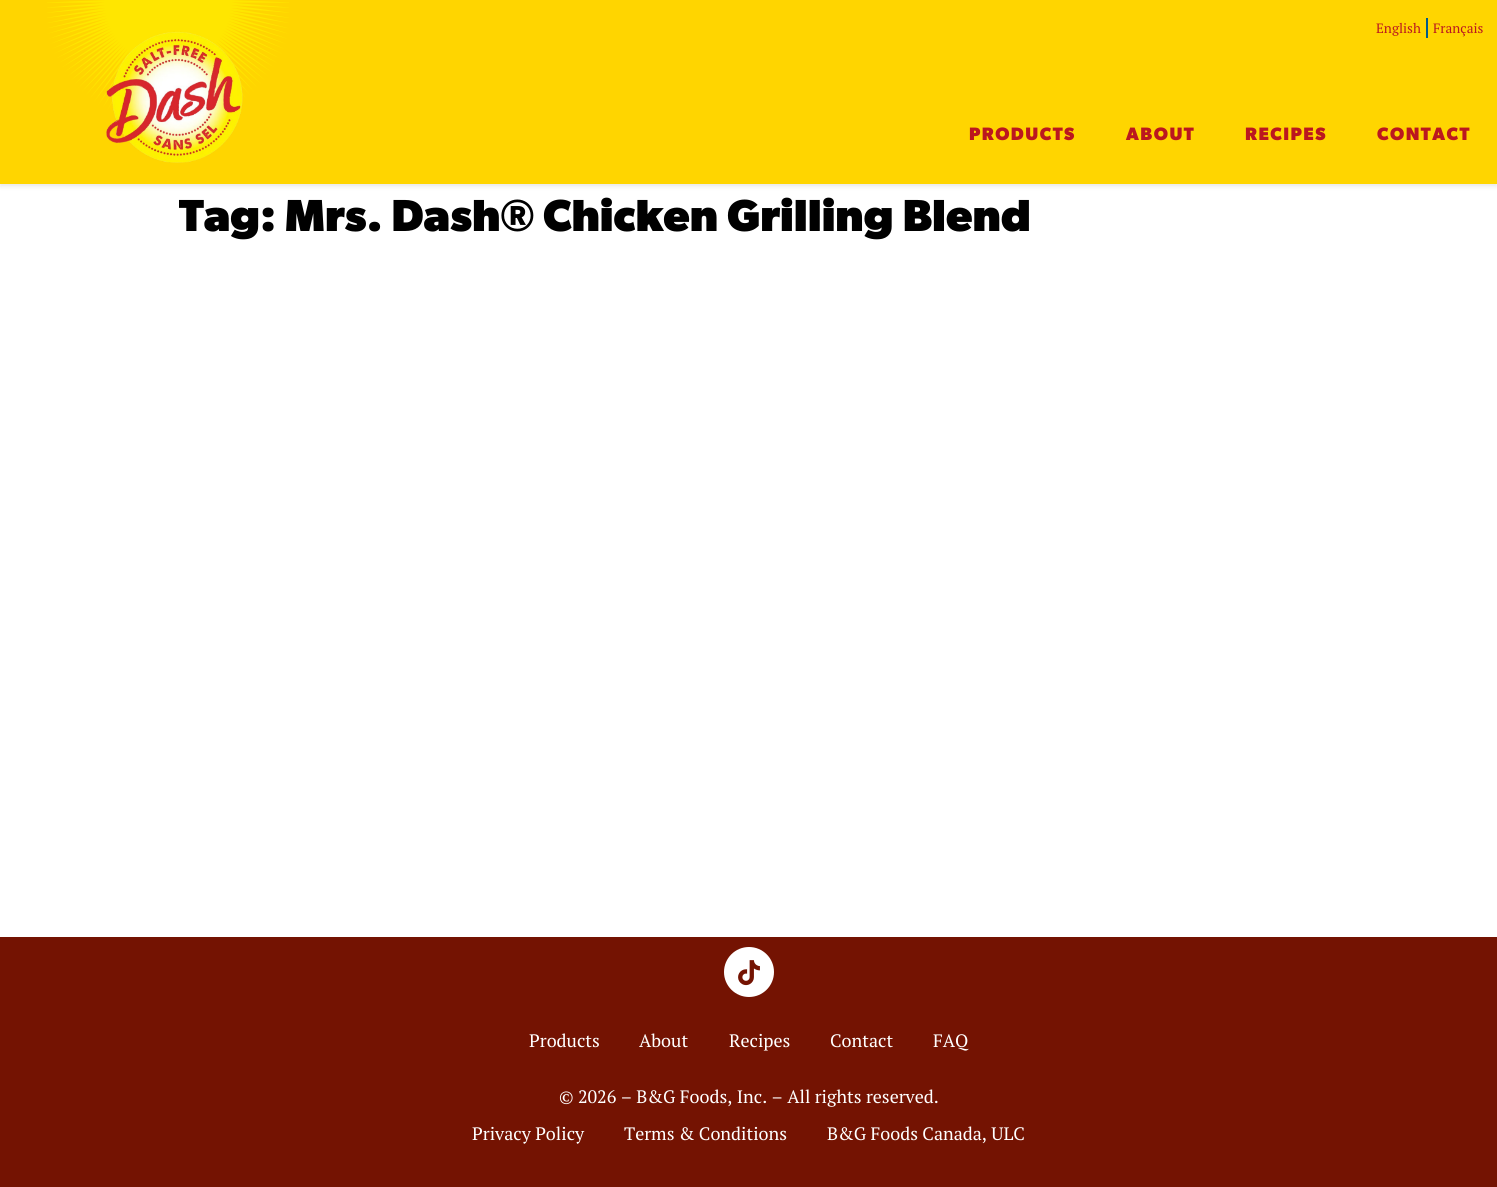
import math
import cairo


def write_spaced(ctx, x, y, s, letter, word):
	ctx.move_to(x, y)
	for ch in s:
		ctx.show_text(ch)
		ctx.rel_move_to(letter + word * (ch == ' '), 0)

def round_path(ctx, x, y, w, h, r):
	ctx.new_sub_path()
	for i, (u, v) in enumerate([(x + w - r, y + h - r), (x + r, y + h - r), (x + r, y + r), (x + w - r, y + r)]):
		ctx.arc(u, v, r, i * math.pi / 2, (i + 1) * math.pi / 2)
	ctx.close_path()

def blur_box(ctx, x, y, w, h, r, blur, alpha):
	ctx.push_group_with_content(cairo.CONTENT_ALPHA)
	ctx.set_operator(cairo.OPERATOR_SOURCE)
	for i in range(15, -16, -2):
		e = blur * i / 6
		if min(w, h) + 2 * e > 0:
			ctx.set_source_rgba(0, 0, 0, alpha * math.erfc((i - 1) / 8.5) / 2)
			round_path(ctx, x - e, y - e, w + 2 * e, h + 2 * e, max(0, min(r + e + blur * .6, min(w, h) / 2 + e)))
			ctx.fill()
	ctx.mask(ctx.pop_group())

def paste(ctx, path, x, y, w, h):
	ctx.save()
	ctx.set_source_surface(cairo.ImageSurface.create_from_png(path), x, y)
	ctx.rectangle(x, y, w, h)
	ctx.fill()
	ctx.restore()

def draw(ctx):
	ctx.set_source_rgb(1, 1, 1)
	ctx.paint()
	ctx.set_source_rgb(0, 0, 0)
	blur_box(ctx, 0, 2, 1497, 184, 0, 2.5, 0.1)
	ctx.set_source_rgb(1, 0.835, 0)
	ctx.rectangle(0, 0, 1497, 184)
	ctx.fill()
	ctx.set_source_rgb(0.004, 0.361, 0.541)
	ctx.rectangle(1426, 18, 2, 20)
	ctx.fill()
	ctx.select_font_face('PT Serif')
	ctx.set_font_size(13.5)
	ctx.set_source_rgb(0.733, 0.09, 0.122)
	ctx.move_to(1376, 33)
	ctx.show_text('English')
	ctx.move_to(1433, 33)
	ctx.show_text('Français')
	paste(ctx, 'media/1.png', 47, 0, 242, 112)
	paste(ctx, 'media/2.png', 106, 31, 137, 132)
	ctx.select_font_face('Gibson', cairo.FONT_SLANT_NORMAL, cairo.FONT_WEIGHT_BOLD)
	ctx.set_font_size(18)
	for x, y, s in [
		(969, 140, 'PRODUCTS'),
		(1126, 140, 'ABOUT'),
		(1245, 140, 'RECIPES'),
		(1377, 140, 'CONTACT'),
	]:
		write_spaced(ctx, x, y, s, 1.5, 0)
	ctx.set_font_size(45)
	ctx.set_source_rgb(0, 0, 0)
	ctx.move_to(179, 231)
	ctx.show_text('Tag: Mrs. Dash® Chicken Grilling Blend')
	ctx.set_source_rgb(0.455, 0.075, 0.008)
	ctx.rectangle(0, 937, 1497, 250)
	ctx.fill()
	ctx.set_source_rgb(1, 1, 1)
	ctx.arc(749, 972, 25, 0, 2 * math.pi)
	ctx.fill()
	paste(ctx, 'media/3.png', 738, 960, 22, 26)
	ctx.select_font_face('PT Serif')
	ctx.set_font_size(18)
	for x, y, s in [
		(529, 1047, 'Products'),
		(639, 1047, 'About'),
		(729, 1047, 'Recipes'),
		(830, 1047, 'Contact'),
		(933, 1047, 'FAQ'),
		(559, 1103, '© 2026 – B&G Foods, Inc. – All rights reserved.'),
		(472, 1140, 'Privacy Policy'),
		(624, 1140, 'Terms & Conditions'),
		(827, 1140, 'B&G Foods Canada, ULC'),
	]:
		ctx.move_to(x, y)
		ctx.show_text(s)


surface = cairo.ImageSurface(cairo.FORMAT_RGB24, 1497, 1187)
ctx = cairo.Context(surface)
options = cairo.FontOptions()
options.set_hint_metrics(cairo.HINT_METRICS_OFF)
options.set_hint_style(cairo.HINT_STYLE_NONE)
ctx.set_font_options(options)
ctx.set_miter_limit(4)
draw(ctx)
surface.write_to_png('image.png')
